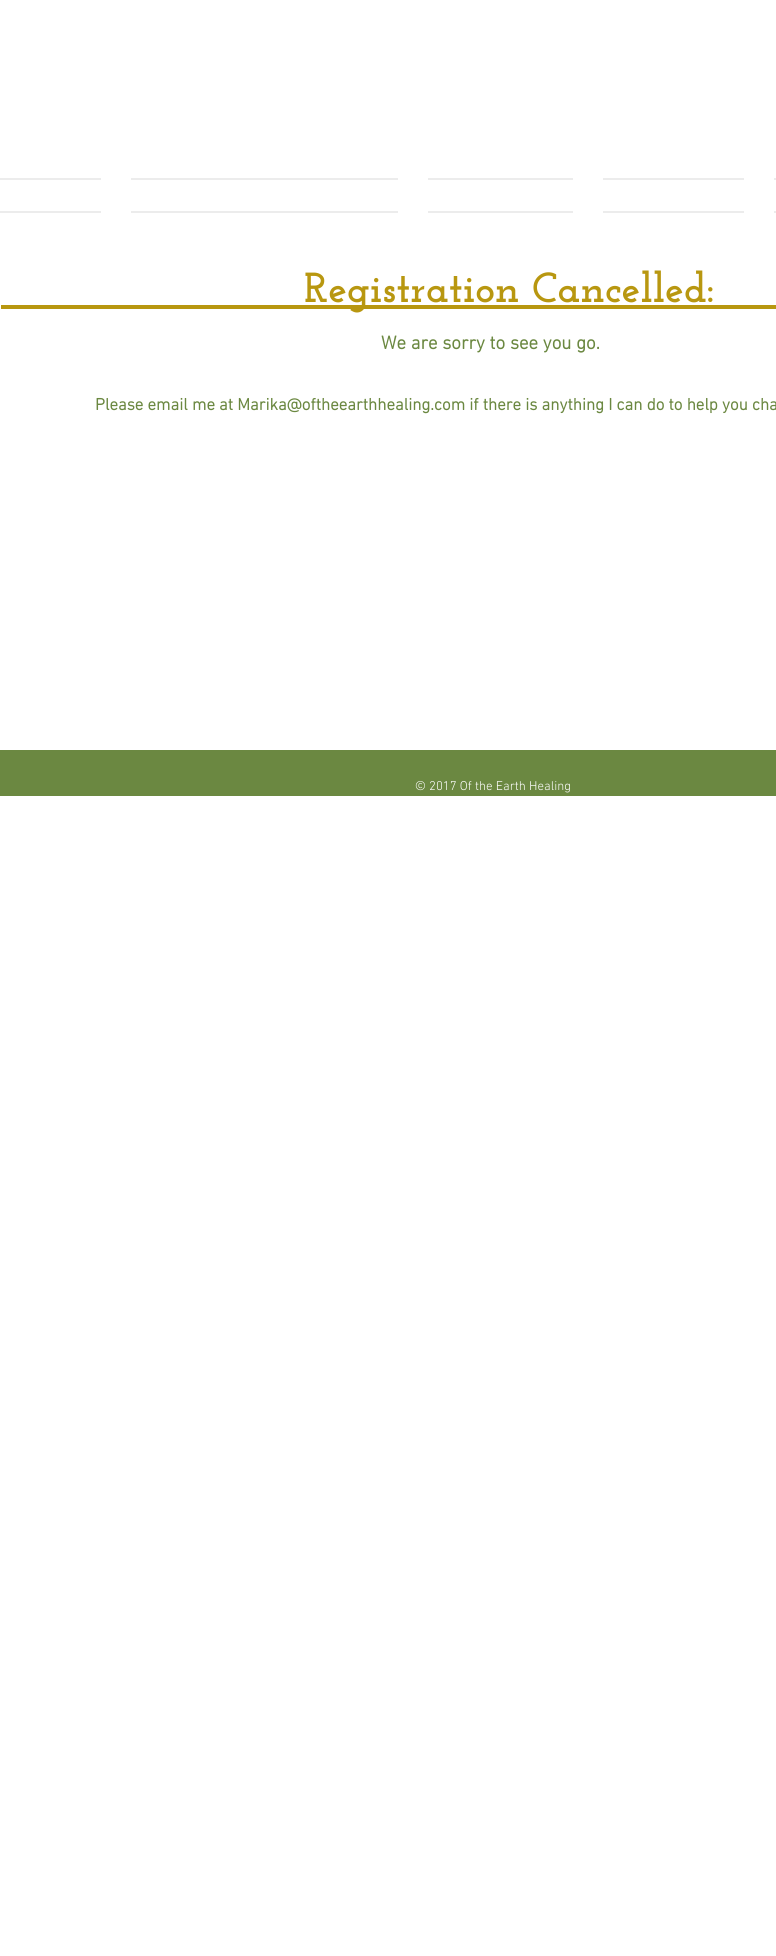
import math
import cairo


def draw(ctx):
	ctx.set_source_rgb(1, 1, 1)
	ctx.paint()
	ctx.set_source_rgb(0.925, 0.925, 0.925)
	ctx.rectangle(0, 178, 101, 2)
	ctx.rectangle(0, 211, 101, 2)
	ctx.rectangle(131, 178, 267, 2)
	ctx.rectangle(131, 211, 267, 2)
	ctx.rectangle(428, 178, 145, 2)
	ctx.rectangle(428, 211, 145, 2)
	ctx.rectangle(603, 178, 141, 2)
	ctx.rectangle(603, 211, 141, 2)
	ctx.rectangle(774, 178, 2, 2)
	ctx.rectangle(774, 211, 2, 2)
	ctx.fill()
	ctx.set_source_rgb(0.722, 0.592, 0.063)
	ctx.rectangle(1, 305, 775, 4)
	ctx.fill()
	ctx.select_font_face('Josefin Slab', cairo.FONT_SLANT_NORMAL, cairo.FONT_WEIGHT_BOLD)
	ctx.set_font_size(42)
	ctx.move_to(304, 302)
	ctx.show_text('Registration Cancelled:')
	ctx.select_font_face('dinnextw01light', cairo.FONT_SLANT_NORMAL, cairo.FONT_WEIGHT_BOLD)
	ctx.set_font_size(19)
	ctx.set_source_rgb(0.42, 0.533, 0.255)
	ctx.move_to(381, 349)
	ctx.show_text('We are sorry to see you go.')
	ctx.set_font_size(17)
	ctx.move_to(95, 410)
	ctx.show_text('Please email me at Marika@oftheearthhealing.com if there is anything I can do to help you cha')
	ctx.rectangle(0, 750, 776, 46)
	ctx.fill()
	ctx.select_font_face('dinnextw01light Light')
	ctx.set_font_size(13)
	ctx.set_source_rgb(1, 1, 1)
	ctx.move_to(415, 790)
	ctx.show_text('© 2017 Of the Earth Healing')


surface = cairo.ImageSurface(cairo.FORMAT_RGB24, 776, 1956)
ctx = cairo.Context(surface)
options = cairo.FontOptions()
options.set_hint_metrics(cairo.HINT_METRICS_OFF)
options.set_hint_style(cairo.HINT_STYLE_NONE)
ctx.set_font_options(options)
ctx.set_miter_limit(4)
draw(ctx)
surface.write_to_png('image.png')
